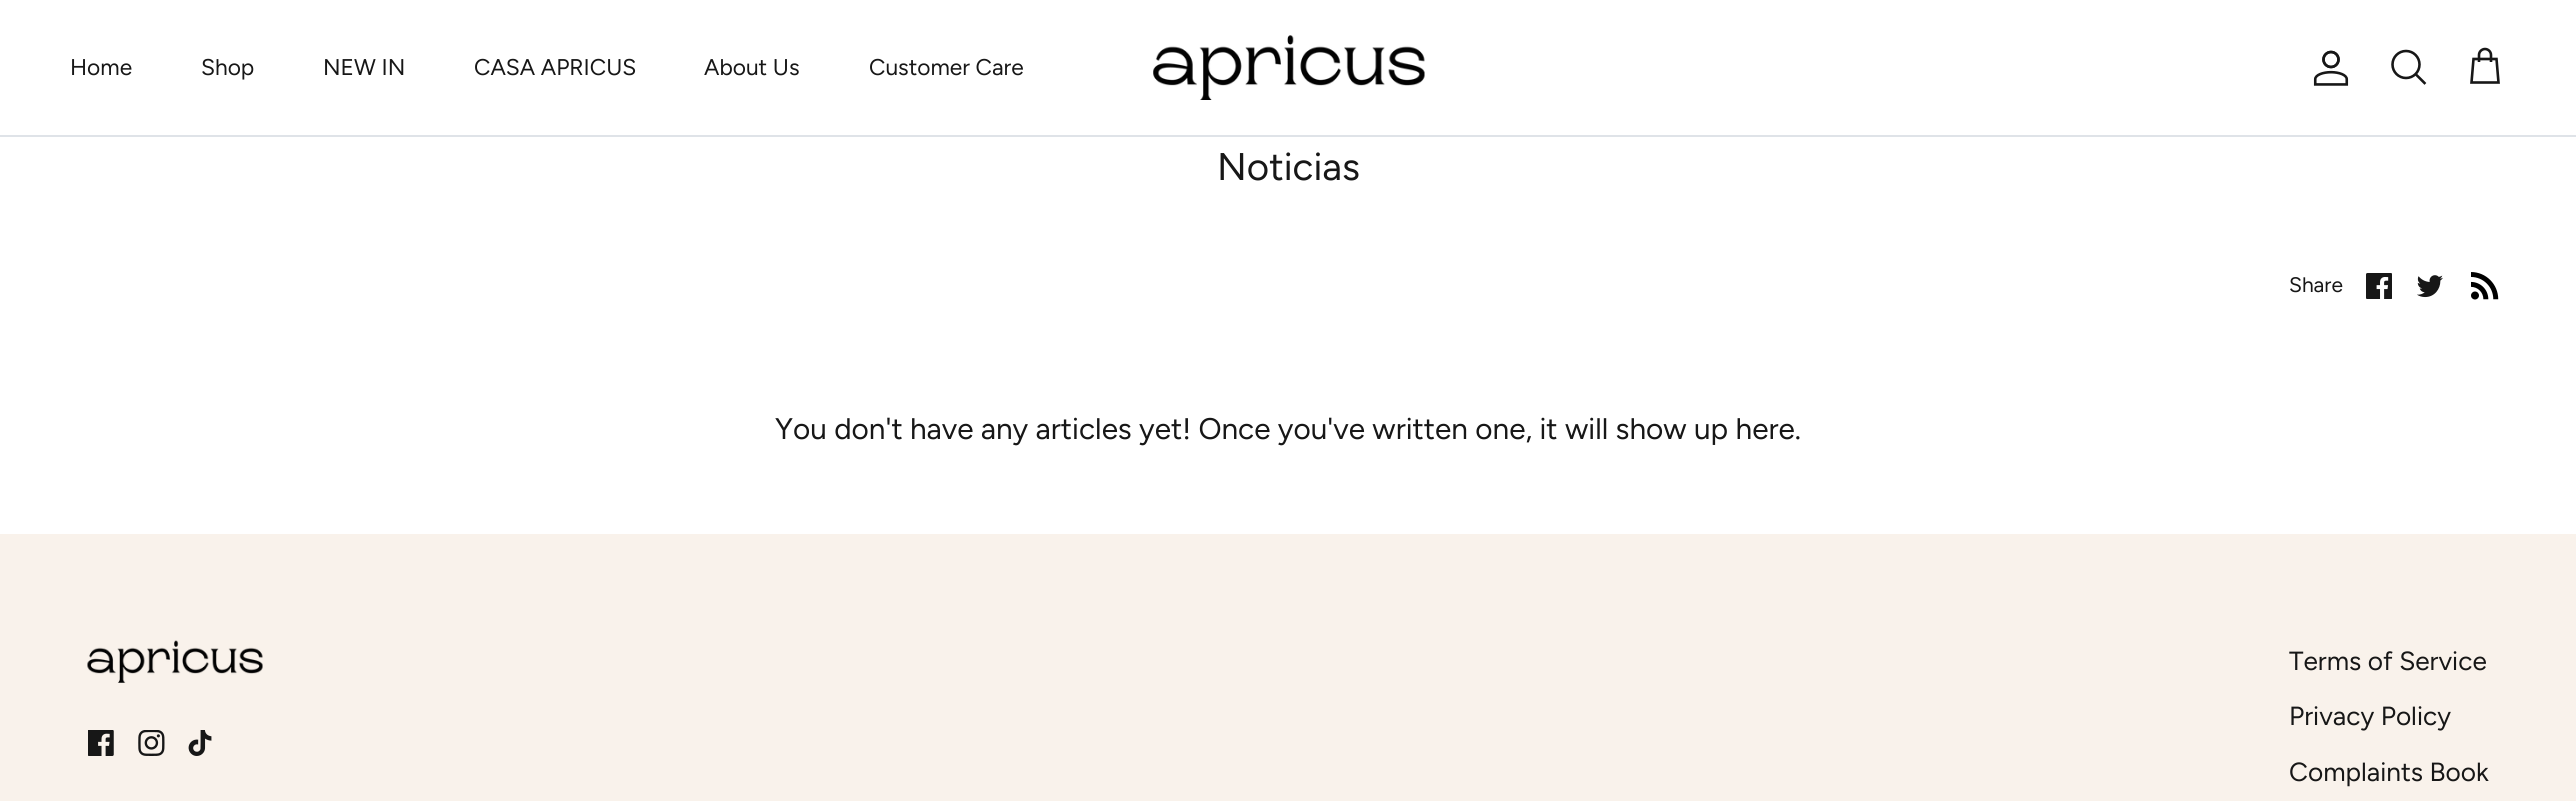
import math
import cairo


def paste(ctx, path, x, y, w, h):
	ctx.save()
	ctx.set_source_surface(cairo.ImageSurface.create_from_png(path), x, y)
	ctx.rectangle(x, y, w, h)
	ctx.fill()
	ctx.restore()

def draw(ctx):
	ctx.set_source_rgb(1, 1, 1)
	ctx.paint()
	ctx.set_source_rgb(0.875, 0.89, 0.91)
	ctx.rectangle(0, 135, 2576, 2)
	ctx.fill()
	ctx.select_font_face('Figtree')
	ctx.set_font_size(22.75)
	ctx.set_source_rgb(0.09, 0.09, 0.09)
	for x, y, s in [
		(70, 75, 'Home'),
		(201, 75, 'Shop'),
		(323, 75, 'NEW IN'),
		(474, 75, 'CASA APRICUS'),
		(704, 75, 'About Us'),
		(869, 75, 'Customer Care'),
	]:
		ctx.move_to(x, y)
		ctx.show_text(s)
	paste(ctx, 'media/1.png', 1153, 35, 272, 65)
	paste(ctx, 'media/2.png', 2313, 50, 36, 36)
	ctx.arc(2406, 64.5, 13.5, 0, 2 * math.pi)
	ctx.set_line_width(2.6)
	ctx.stroke()
	ctx.new_path()
	ctx.move_to(2416.5, 75)
	ctx.line_to(2424.5, 83)
	ctx.set_line_cap(cairo.LINE_CAP_SQUARE)
	ctx.stroke()
	ctx.new_path()
	ctx.move_to(2491, 62)
	ctx.line_to(2491, 55)
	ctx.curve_to(2491, 51.5, 2488, 49, 2485, 49)
	ctx.curve_to(2482, 49, 2479, 51.5, 2479, 55)
	ctx.line_to(2479, 62)
	ctx.move_to(2473.5, 59)
	ctx.line_to(2496.5, 59)
	ctx.line_to(2498.5, 82.5)
	ctx.line_to(2471.5, 82.5)
	ctx.close_path()
	ctx.set_line_cap(cairo.LINE_CAP_BUTT)
	ctx.stroke()
	ctx.set_font_size(38.5)
	ctx.move_to(1217, 180)
	ctx.show_text('Noticias')
	ctx.set_font_size(21)
	ctx.move_to(2289, 292)
	ctx.show_text('Share')
	paste(ctx, 'media/3.png', 2366, 273, 26, 26)
	paste(ctx, 'media/4.png', 2417, 275, 26, 23)
	paste(ctx, 'media/5.png', 2471, 272, 28, 28)
	ctx.set_font_size(29.75)
	ctx.move_to(775, 439)
	ctx.show_text('You don\'t have any articles yet! Once you\'ve written one, it will show up here.')
	ctx.set_source_rgb(0.973, 0.949, 0.918)
	ctx.rectangle(0, 534, 2576, 267)
	ctx.fill()
	paste(ctx, 'media/6.png', 87, 640, 176, 43)
	paste(ctx, 'media/7.png', 88, 730, 26, 26)
	paste(ctx, 'media/8.png', 138, 730, 27, 26)
	paste(ctx, 'media/9.png', 188, 730, 24, 26)
	ctx.set_font_size(26.25)
	ctx.set_source_rgb(0.09, 0.09, 0.09)
	for x, y, s in [
		(2289, 670, 'Terms of Service'),
		(2289, 725, 'Privacy Policy'),
		(2289, 781, 'Complaints Book'),
	]:
		ctx.move_to(x, y)
		ctx.show_text(s)


surface = cairo.ImageSurface(cairo.FORMAT_RGB24, 2576, 801)
ctx = cairo.Context(surface)
options = cairo.FontOptions()
options.set_hint_metrics(cairo.HINT_METRICS_OFF)
options.set_hint_style(cairo.HINT_STYLE_NONE)
ctx.set_font_options(options)
ctx.set_miter_limit(4)
draw(ctx)
surface.write_to_png('image.png')
